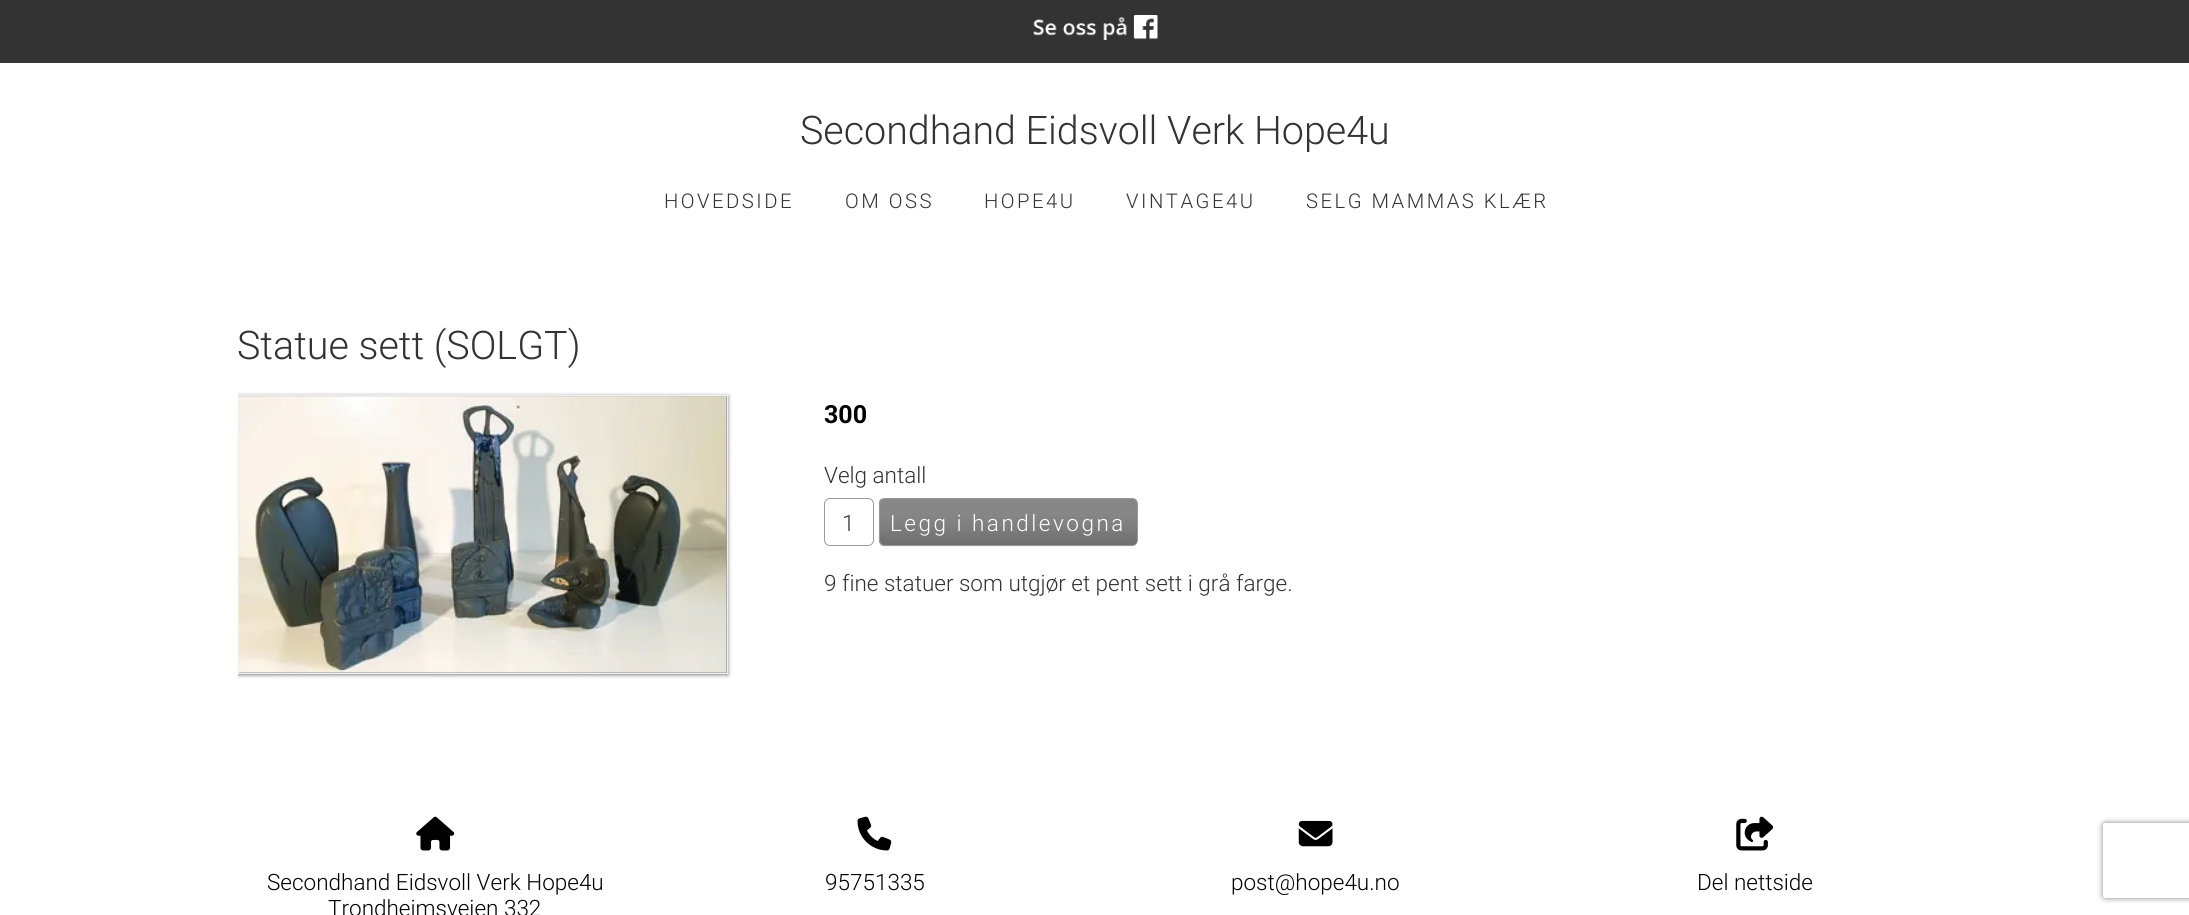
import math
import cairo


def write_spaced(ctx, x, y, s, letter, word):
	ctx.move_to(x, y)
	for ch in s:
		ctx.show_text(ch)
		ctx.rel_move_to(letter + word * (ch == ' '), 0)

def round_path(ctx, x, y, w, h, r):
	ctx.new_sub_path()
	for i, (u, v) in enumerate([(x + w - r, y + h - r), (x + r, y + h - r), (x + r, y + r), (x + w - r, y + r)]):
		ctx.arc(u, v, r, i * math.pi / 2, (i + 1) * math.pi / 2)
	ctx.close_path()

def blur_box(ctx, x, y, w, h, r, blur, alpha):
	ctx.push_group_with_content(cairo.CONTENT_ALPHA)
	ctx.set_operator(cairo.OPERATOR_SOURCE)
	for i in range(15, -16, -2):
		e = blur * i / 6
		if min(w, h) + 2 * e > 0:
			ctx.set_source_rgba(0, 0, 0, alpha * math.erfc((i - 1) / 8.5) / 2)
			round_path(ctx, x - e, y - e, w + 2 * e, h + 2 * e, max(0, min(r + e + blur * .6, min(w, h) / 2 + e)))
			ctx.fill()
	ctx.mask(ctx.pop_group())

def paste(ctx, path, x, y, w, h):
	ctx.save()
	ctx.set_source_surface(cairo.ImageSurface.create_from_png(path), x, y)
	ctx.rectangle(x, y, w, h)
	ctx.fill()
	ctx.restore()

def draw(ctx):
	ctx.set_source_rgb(1, 1, 1)
	ctx.paint()
	ctx.select_font_face('Roboto Light')
	ctx.set_font_size(39.4)
	ctx.set_source_rgb(0.2, 0.2, 0.2)
	ctx.move_to(800, 144)
	ctx.show_text('Secondhand Eidsvoll Verk Hope4u')
	ctx.set_font_size(20.25)
	for x, y, s in [
		(664, 208, 'HOVEDSIDE'),
		(845, 208, 'OM OSS'),
		(984, 208, 'HOPE4U'),
		(1126, 208, 'VINTAGE4U'),
		(1306, 208, 'SELG MAMMAS KLÆR'),
	]:
		write_spaced(ctx, x, y, s, 2.5, 0)
	ctx.rectangle(0, 0, 2189, 63)
	ctx.fill()
	paste(ctx, 'media/1.png', 1033, 15, 125, 25)
	ctx.set_font_size(39.4)
	ctx.move_to(237, 359)
	ctx.show_text('Statue sett (SOLGT)')
	ctx.save()
	ctx.rectangle(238, 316, 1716, 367)
	ctx.clip()
	ctx.set_source_rgb(0, 0, 0)
	blur_box(ctx, 238, 396, 490, 279, 0, 2, 0.5)
	ctx.restore()
	ctx.rectangle(238.5, 395.5, 489, 278)
	ctx.set_source_rgb(0.933, 0.933, 0.933)
	ctx.set_line_width(1)
	ctx.stroke()
	paste(ctx, 'media/2.png', 238, 396, 489, 277)
	ctx.select_font_face('Roboto', cairo.FONT_SLANT_NORMAL, cairo.FONT_WEIGHT_BOLD)
	ctx.set_font_size(25)
	ctx.set_source_rgb(0, 0, 0)
	ctx.move_to(824, 423)
	ctx.show_text('300')
	ctx.select_font_face('Roboto Light')
	ctx.set_font_size(22.5)
	ctx.set_source_rgb(0.2, 0.2, 0.2)
	ctx.move_to(824, 483)
	ctx.show_text('Velg antall')
	round_path(ctx, 824.5, 498.5, 49, 47, 5.5)
	ctx.set_source_rgb(0.6, 0.6, 0.6)
	ctx.stroke()
	ctx.set_source_rgb(0.2, 0.2, 0.2)
	ctx.move_to(842, 531)
	ctx.show_text('1')
	paste(ctx, 'media/3.png', 878, 498, 260, 49)
	round_path(ctx, 879.5, 498.5, 258, 47, 5.5)
	ctx.set_source_rgb(0.6, 0.6, 0.6)
	ctx.stroke()
	ctx.set_source_rgb(1, 1, 1)
	write_spaced(ctx, 890, 531, 'Legg i handlevogna', 2.5, 0)
	ctx.set_source_rgb(0.2, 0.2, 0.2)
	ctx.move_to(824, 591)
	ctx.show_text('9 fine statuer som utgjør et pent sett i grå farge.')
	paste(ctx, 'media/4.png', 416, 816, 39, 35)
	ctx.set_source_rgb(0, 0, 0)
	ctx.move_to(267, 890)
	ctx.show_text('Secondhand Eidsvoll Verk Hope4u')
	ctx.move_to(328, 916)
	ctx.show_text('Trondheimsveien 332')
	paste(ctx, 'media/5.png', 857, 816, 35, 35)
	ctx.move_to(825, 890)
	ctx.show_text('95751335')
	paste(ctx, 'media/6.png', 1298, 820, 35, 27)
	ctx.move_to(1231, 890)
	ctx.show_text('post@hope4u.no')
	paste(ctx, 'media/7.png', 1736, 816, 38, 35)
	ctx.move_to(1697, 890)
	ctx.show_text('Del nettside')
	ctx.save()
	ctx.set_fill_rule(cairo.FILL_RULE_EVEN_ODD)
	ctx.new_path()
	ctx.move_to(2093, 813)
	ctx.line_to(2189, 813)
	ctx.line_to(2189, 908)
	ctx.line_to(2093, 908)
	ctx.close_path()
	ctx.move_to(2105.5, 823)
	ctx.line_to(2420.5, 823)
	ctx.curve_to(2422, 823, 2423, 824, 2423, 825.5)
	ctx.line_to(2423, 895.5)
	ctx.curve_to(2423, 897, 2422, 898, 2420.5, 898)
	ctx.line_to(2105.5, 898)
	ctx.curve_to(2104, 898, 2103, 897, 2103, 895.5)
	ctx.line_to(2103, 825.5)
	ctx.curve_to(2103, 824, 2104, 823, 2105.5, 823)
	ctx.close_path()
	ctx.clip()
	ctx.set_source_rgb(0.502, 0.502, 0.502)
	blur_box(ctx, 2103, 823, 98, 75, 2.5, 3, 1)
	ctx.restore()


surface = cairo.ImageSurface(cairo.FORMAT_RGB24, 2189, 915)
ctx = cairo.Context(surface)
options = cairo.FontOptions()
options.set_hint_metrics(cairo.HINT_METRICS_OFF)
options.set_hint_style(cairo.HINT_STYLE_NONE)
ctx.set_font_options(options)
ctx.set_miter_limit(4)
draw(ctx)
surface.write_to_png('image.png')
